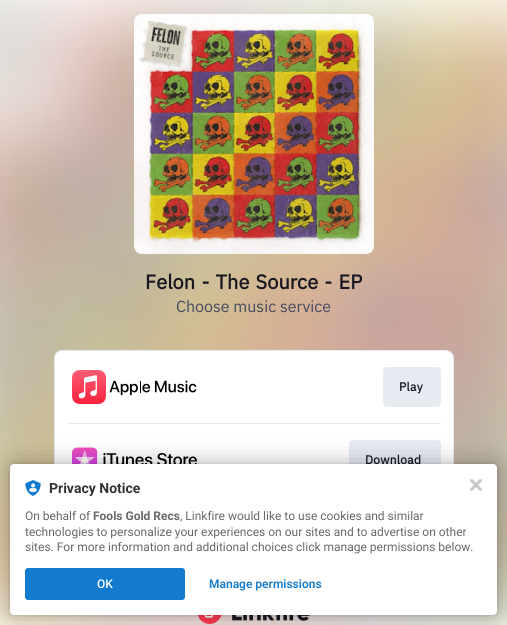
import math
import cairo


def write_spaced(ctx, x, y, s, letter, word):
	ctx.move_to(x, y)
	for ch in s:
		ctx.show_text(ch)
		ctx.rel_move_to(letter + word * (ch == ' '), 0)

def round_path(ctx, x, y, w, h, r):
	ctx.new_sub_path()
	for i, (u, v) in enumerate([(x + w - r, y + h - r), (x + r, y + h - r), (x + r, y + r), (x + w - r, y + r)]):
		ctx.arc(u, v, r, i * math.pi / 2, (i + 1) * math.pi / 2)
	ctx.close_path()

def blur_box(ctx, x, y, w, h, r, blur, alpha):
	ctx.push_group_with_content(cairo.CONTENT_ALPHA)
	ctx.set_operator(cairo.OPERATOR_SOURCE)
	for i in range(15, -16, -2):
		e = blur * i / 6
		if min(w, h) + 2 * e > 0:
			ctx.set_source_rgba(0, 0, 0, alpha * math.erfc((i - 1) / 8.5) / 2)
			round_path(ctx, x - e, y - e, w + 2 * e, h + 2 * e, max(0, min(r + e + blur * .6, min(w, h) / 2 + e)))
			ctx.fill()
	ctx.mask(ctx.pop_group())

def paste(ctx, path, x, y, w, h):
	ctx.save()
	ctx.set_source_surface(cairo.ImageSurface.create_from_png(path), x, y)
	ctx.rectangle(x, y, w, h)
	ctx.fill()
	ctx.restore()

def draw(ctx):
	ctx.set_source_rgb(1, 1, 1)
	ctx.paint()
	paste(ctx, 'media/1.png', 0, 0, 507, 625)
	paste(ctx, 'media/2.png', 134, 14, 240, 240)
	ctx.select_font_face('IBM Plex Sans', cairo.FONT_SLANT_NORMAL, cairo.FONT_WEIGHT_BOLD)
	ctx.set_font_size(20)
	ctx.set_source_rgb(0.094, 0.09, 0.129)
	write_spaced(ctx, 145, 289, 'Felon - The Source - EP', 0, 1.5)
	ctx.select_font_face('IBM Plex Sans')
	ctx.set_font_size(16)
	ctx.set_source_rgb(0.271, 0.294, 0.373)
	ctx.move_to(176, 312)
	ctx.show_text('Choose music service')
	round_path(ctx, 54.5, 350.5, 399, 146, 7.5)
	ctx.set_source_rgb(0.902, 0.918, 0.949)
	ctx.set_line_width(1)
	ctx.stroke()
	ctx.set_source_rgb(1, 1, 1)
	round_path(ctx, 55, 351, 398, 145, 7)
	ctx.fill()
	paste(ctx, 'media/3.png', 72, 370, 125, 34)
	ctx.set_source_rgb(0.902, 0.918, 0.949)
	round_path(ctx, 383, 367, 58, 40, 4)
	ctx.fill()
	ctx.select_font_face('IBM Plex Sans', cairo.FONT_SLANT_NORMAL, cairo.FONT_WEIGHT_BOLD)
	ctx.set_font_size(12)
	ctx.set_source_rgb(0.094, 0.09, 0.129)
	write_spaced(ctx, 399, 391, 'Play', 0.25, 0)
	ctx.set_source_rgb(0.902, 0.918, 0.949)
	ctx.rectangle(67, 423, 374, 1)
	ctx.fill()
	paste(ctx, 'media/4.png', 72, 447, 125, 17)
	round_path(ctx, 349, 440, 92, 40, 4)
	ctx.fill()
	ctx.set_source_rgb(0.094, 0.09, 0.129)
	write_spaced(ctx, 365, 464, 'Download', 0.25, 0)
	paste(ctx, 'media/5.png', 198, 615, 112, 9)
	ctx.set_source_rgb(0, 0, 0)
	blur_box(ctx, 10, 464, 487, 151, 4, 2, 0.12)
	blur_box(ctx, 10, 464, 487, 151, 4, 12, 0.3)
	ctx.set_source_rgb(1, 1, 1)
	round_path(ctx, 10, 464, 487, 151, 4)
	ctx.fill()
	paste(ctx, 'media/6.png', 25, 480, 16, 16)
	ctx.select_font_face('Roboto', cairo.FONT_SLANT_NORMAL, cairo.FONT_WEIGHT_BOLD)
	ctx.set_font_size(14)
	ctx.set_source_rgb(0.196, 0.196, 0.196)
	ctx.move_to(49, 493)
	ctx.show_text('Privacy Notice')
	ctx.select_font_face('Roboto')
	ctx.set_font_size(12)
	ctx.set_source_rgb(0.408, 0.408, 0.408)
	ctx.move_to(25, 520)
	ctx.show_text('On behalf of')
	ctx.select_font_face('Roboto', cairo.FONT_SLANT_NORMAL, cairo.FONT_WEIGHT_BOLD)
	ctx.move_to(93, 520)
	ctx.show_text('Fools Gold Recs')
	ctx.select_font_face('Roboto')
	for x, y, s in [
		(180, 520, ', Linkfire would like to use cookies and similar'),
		(25, 536, 'technologies to personalize your experiences on our sites and to advertise on other'),
		(25, 551, 'sites. For more information and additional choices click manage permissions below.'),
	]:
		ctx.move_to(x, y)
		ctx.show_text(s)
	ctx.set_source_rgb(0.075, 0.482, 0.812)
	round_path(ctx, 25, 568, 160, 32, 3)
	ctx.fill()
	ctx.select_font_face('Roboto Medium')
	ctx.set_source_rgb(1, 1, 1)
	ctx.move_to(97, 588)
	ctx.show_text('OK')
	ctx.select_font_face('Roboto SemiBold')
	ctx.set_source_rgb(0.075, 0.482, 0.812)
	ctx.move_to(209, 588)
	ctx.show_text('Manage permissions')
	paste(ctx, 'media/7.png', 470, 479, 12, 12)


surface = cairo.ImageSurface(cairo.FORMAT_RGB24, 507, 625)
ctx = cairo.Context(surface)
options = cairo.FontOptions()
options.set_hint_metrics(cairo.HINT_METRICS_OFF)
options.set_hint_style(cairo.HINT_STYLE_NONE)
ctx.set_font_options(options)
ctx.set_miter_limit(4)
draw(ctx)
surface.write_to_png('image.png')
